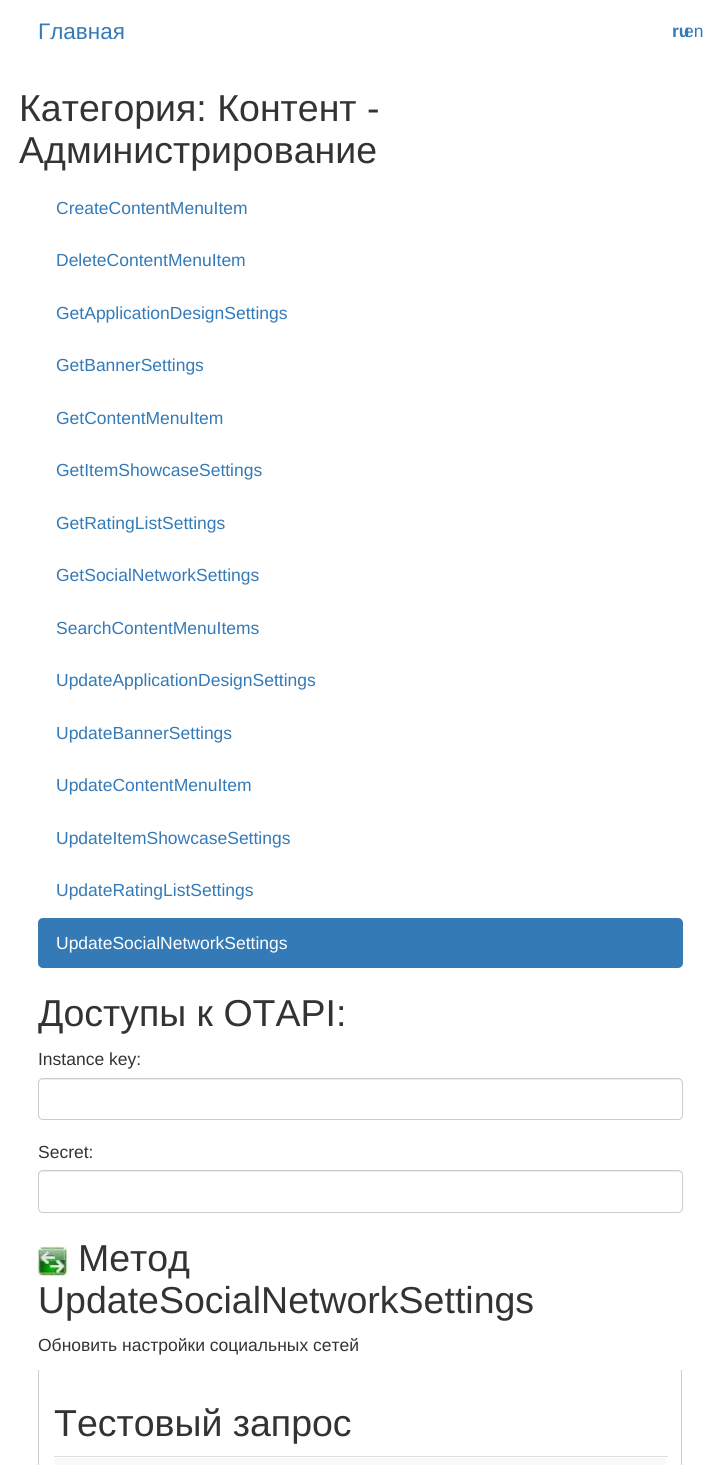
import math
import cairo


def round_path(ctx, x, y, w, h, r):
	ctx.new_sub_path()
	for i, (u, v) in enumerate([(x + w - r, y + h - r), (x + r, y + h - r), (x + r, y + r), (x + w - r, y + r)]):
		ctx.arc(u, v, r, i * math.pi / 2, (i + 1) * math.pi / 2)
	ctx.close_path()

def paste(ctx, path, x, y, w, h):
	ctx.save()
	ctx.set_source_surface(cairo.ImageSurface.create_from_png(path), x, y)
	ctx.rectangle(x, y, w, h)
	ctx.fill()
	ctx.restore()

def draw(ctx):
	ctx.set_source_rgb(1, 1, 1)
	ctx.paint()
	ctx.select_font_face('Liberation Sans')
	ctx.set_font_size(22.5)
	ctx.set_source_rgb(0.2, 0.478, 0.718)
	ctx.move_to(38, 39)
	ctx.show_text('Главная')
	ctx.set_font_size(17.5)
	ctx.move_to(684, 37)
	ctx.show_text('en')
	ctx.select_font_face('Liberation Sans', cairo.FONT_SLANT_NORMAL, cairo.FONT_WEIGHT_BOLD)
	ctx.move_to(672, 37)
	ctx.show_text('ru')
	ctx.select_font_face('Liberation Sans')
	ctx.set_font_size(37.5)
	ctx.set_source_rgb(0.2, 0.2, 0.2)
	ctx.move_to(19, 121)
	ctx.show_text('Категория: Контент -')
	ctx.move_to(19, 163)
	ctx.show_text('Администрирование')
	ctx.set_font_size(17.5)
	ctx.set_source_rgb(0.2, 0.478, 0.718)
	for x, y, s in [
		(56, 214, 'CreateContentMenuItem'),
		(56, 266, 'DeleteContentMenuItem'),
		(56, 319, 'GetApplicationDesignSettings'),
		(56, 371, 'GetBannerSettings'),
		(56, 424, 'GetContentMenuItem'),
		(56, 476, 'GetItemShowcaseSettings'),
		(56, 529, 'GetRatingListSettings'),
		(56, 581, 'GetSocialNetworkSettings'),
		(56, 634, 'SearchContentMenuItems'),
		(56, 686, 'UpdateApplicationDesignSettings'),
		(56, 739, 'UpdateBannerSettings'),
		(56, 791, 'UpdateContentMenuItem'),
		(56, 844, 'UpdateItemShowcaseSettings'),
		(56, 896, 'UpdateRatingListSettings'),
	]:
		ctx.move_to(x, y)
		ctx.show_text(s)
	round_path(ctx, 38, 918, 645, 50, 5)
	ctx.fill()
	ctx.set_source_rgb(1, 1, 1)
	ctx.move_to(56, 949)
	ctx.show_text('UpdateSocialNetworkSettings')
	ctx.set_font_size(37.5)
	ctx.set_source_rgb(0.2, 0.2, 0.2)
	ctx.move_to(38, 1026)
	ctx.show_text('Доступы к OTAPI:')
	ctx.set_font_size(17.5)
	ctx.move_to(38, 1065)
	ctx.show_text('Instance key:')
	ctx.set_source_rgb(0.925, 0.925, 0.925)
	ctx.new_path()
	ctx.move_to(42, 1080)
	ctx.line_to(678, 1080)
	ctx.curve_to(680, 1080, 681, 1082, 681, 1084)
	ctx.curve_to(681, 1081, 680, 1079, 677, 1079)
	ctx.line_to(43, 1079)
	ctx.curve_to(40, 1079, 39, 1081, 39, 1084)
	ctx.curve_to(39, 1082, 40, 1080, 42, 1080)
	ctx.close_path()
	ctx.fill()
	round_path(ctx, 38.5, 1078.5, 644, 41, 4.5)
	ctx.set_source_rgb(0.8, 0.8, 0.8)
	ctx.set_line_width(1)
	ctx.stroke()
	ctx.set_source_rgb(0.2, 0.2, 0.2)
	ctx.move_to(38, 1158)
	ctx.show_text('Secret:')
	ctx.set_source_rgb(0.925, 0.925, 0.925)
	ctx.new_path()
	ctx.move_to(42, 1172)
	ctx.line_to(678, 1172)
	ctx.curve_to(680, 1172, 681, 1174, 681, 1176)
	ctx.curve_to(681, 1173, 680, 1171, 677, 1171)
	ctx.line_to(43, 1171)
	ctx.curve_to(40, 1171, 39, 1173, 39, 1176)
	ctx.curve_to(39, 1174, 40, 1172, 42, 1172)
	ctx.close_path()
	ctx.fill()
	round_path(ctx, 38.5, 1170.5, 644, 42, 4.5)
	ctx.set_source_rgb(0.8, 0.8, 0.8)
	ctx.stroke()
	paste(ctx, 'media/1.png', 37, 1246, 31, 31)
	ctx.set_font_size(37.5)
	ctx.set_source_rgb(0.2, 0.2, 0.2)
	ctx.move_to(78, 1271)
	ctx.show_text('Метод')
	ctx.move_to(38, 1313)
	ctx.show_text('UpdateSocialNetworkSettings')
	ctx.set_font_size(17.5)
	ctx.move_to(38, 1351)
	ctx.show_text('Обновить настройки социальных сетей')
	ctx.set_source_rgb(0.8, 0.8, 0.8)
	ctx.rectangle(681, 1370, 1, 95)
	ctx.fill()
	ctx.rectangle(38, 1370, 1, 95)
	ctx.fill()
	ctx.set_font_size(37.5)
	ctx.set_source_rgb(0.2, 0.2, 0.2)
	ctx.move_to(54, 1436)
	ctx.show_text('Тестовый запрос')
	ctx.set_source_rgb(0.976, 0.976, 0.976)
	ctx.rectangle(54, 1458, 612, 7)
	ctx.fill()
	ctx.set_source_rgb(0.867, 0.867, 0.867)
	ctx.rectangle(54, 1456, 614, 1)
	ctx.fill()


surface = cairo.ImageSurface(cairo.FORMAT_RGB24, 720, 1465)
ctx = cairo.Context(surface)
options = cairo.FontOptions()
options.set_hint_metrics(cairo.HINT_METRICS_OFF)
options.set_hint_style(cairo.HINT_STYLE_NONE)
ctx.set_font_options(options)
ctx.set_miter_limit(4)
draw(ctx)
surface.write_to_png('image.png')
